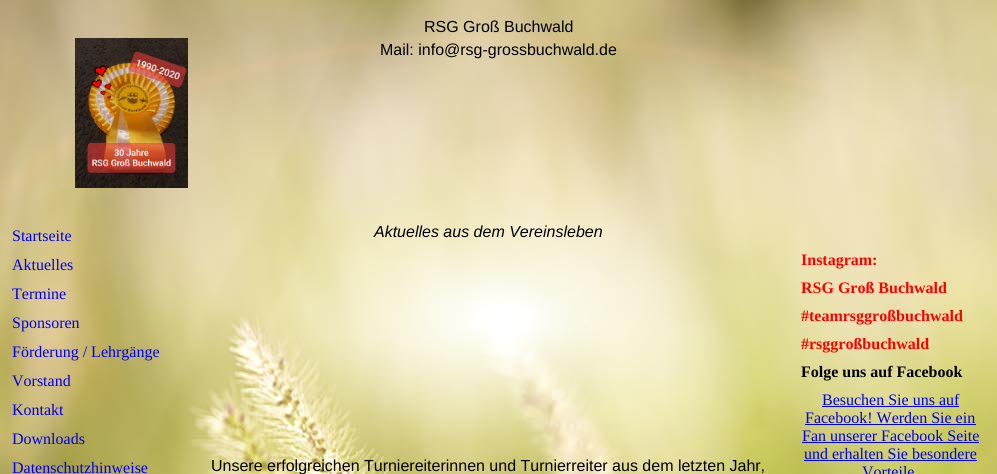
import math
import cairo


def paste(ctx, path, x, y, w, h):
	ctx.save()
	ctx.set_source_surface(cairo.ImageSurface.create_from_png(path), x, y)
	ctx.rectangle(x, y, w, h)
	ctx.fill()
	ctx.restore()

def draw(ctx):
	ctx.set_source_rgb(1, 1, 1)
	ctx.paint()
	paste(ctx, 'media/1.png', 0, 0, 997, 474)
	paste(ctx, 'media/2.png', 75, 38, 113, 150)
	ctx.select_font_face('Liberation Sans')
	ctx.set_font_size(16)
	ctx.set_source_rgb(0, 0, 0)
	ctx.move_to(424, 32)
	ctx.show_text('RSG Groß Buchwald')
	ctx.move_to(380, 55)
	ctx.show_text('Mail: info@rsg-grossbuchwald.de')
	ctx.select_font_face('Liberation Serif')
	ctx.set_source_rgb(0, 0, 0.933)
	for x, y, s in [
		(12, 241, 'Startseite'),
		(12, 270, 'Aktuelles'),
		(12, 299, 'Termine'),
		(12, 328, 'Sponsoren'),
		(12, 357, 'Förderung / Lehrgänge'),
		(12, 386, 'Vorstand'),
		(12, 415, 'Kontakt'),
		(12, 444, 'Downloads'),
		(12, 473, 'Datenschutzhinweise'),
	]:
		ctx.move_to(x, y)
		ctx.show_text(s)
	ctx.select_font_face('Liberation Sans', cairo.FONT_SLANT_ITALIC)
	ctx.set_source_rgb(0, 0, 0)
	ctx.move_to(374, 237)
	ctx.show_text('Aktuelles aus dem Vereinsleben')
	ctx.select_font_face('Liberation Sans')
	ctx.move_to(211, 471)
	ctx.show_text('Unsere erfolgreichen Turniereiterinnen und Turnierreiter aus dem letzten Jahr,')
	ctx.select_font_face('Liberation Serif', cairo.FONT_SLANT_NORMAL, cairo.FONT_WEIGHT_BOLD)
	ctx.set_source_rgb(1, 0, 0)
	ctx.move_to(801, 265)
	ctx.show_text('Instagram:')
	ctx.move_to(801, 293)
	ctx.show_text('RSG Groß Buchwald')
	ctx.save()
	ctx.rectangle(801, 251, 180, 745)
	ctx.clip()
	ctx.move_to(801, 321)
	ctx.show_text('#teamrsggroßbuchwald')
	ctx.move_to(801, 349)
	ctx.show_text('#rsggroßbuchwald')
	ctx.restore()
	ctx.set_source_rgb(0, 0, 0)
	ctx.move_to(801, 377)
	ctx.show_text('Folge uns auf Facebook')
	ctx.select_font_face('Liberation Serif')
	ctx.set_source_rgb(0, 0, 0.933)
	ctx.move_to(822, 405)
	ctx.show_text('Besuchen Sie uns auf')
	ctx.rectangle(822, 406, 137, 1)
	ctx.fill()
	ctx.move_to(805, 423)
	ctx.show_text('Facebook! Werden Sie ein')
	ctx.rectangle(805, 424, 171, 1)
	ctx.fill()
	ctx.move_to(802, 441)
	ctx.show_text('Fan unserer Facebook Seite')
	ctx.rectangle(802, 442, 177, 1)
	ctx.fill()
	ctx.move_to(804, 459)
	ctx.show_text('und erhalten Sie besondere')
	ctx.rectangle(804, 460, 173, 1)
	ctx.fill()
	ctx.move_to(862, 477)
	ctx.show_text('Vorteile')


surface = cairo.ImageSurface(cairo.FORMAT_RGB24, 997, 474)
ctx = cairo.Context(surface)
options = cairo.FontOptions()
options.set_hint_metrics(cairo.HINT_METRICS_OFF)
options.set_hint_style(cairo.HINT_STYLE_NONE)
ctx.set_font_options(options)
ctx.set_miter_limit(4)
draw(ctx)
surface.write_to_png('image.png')
